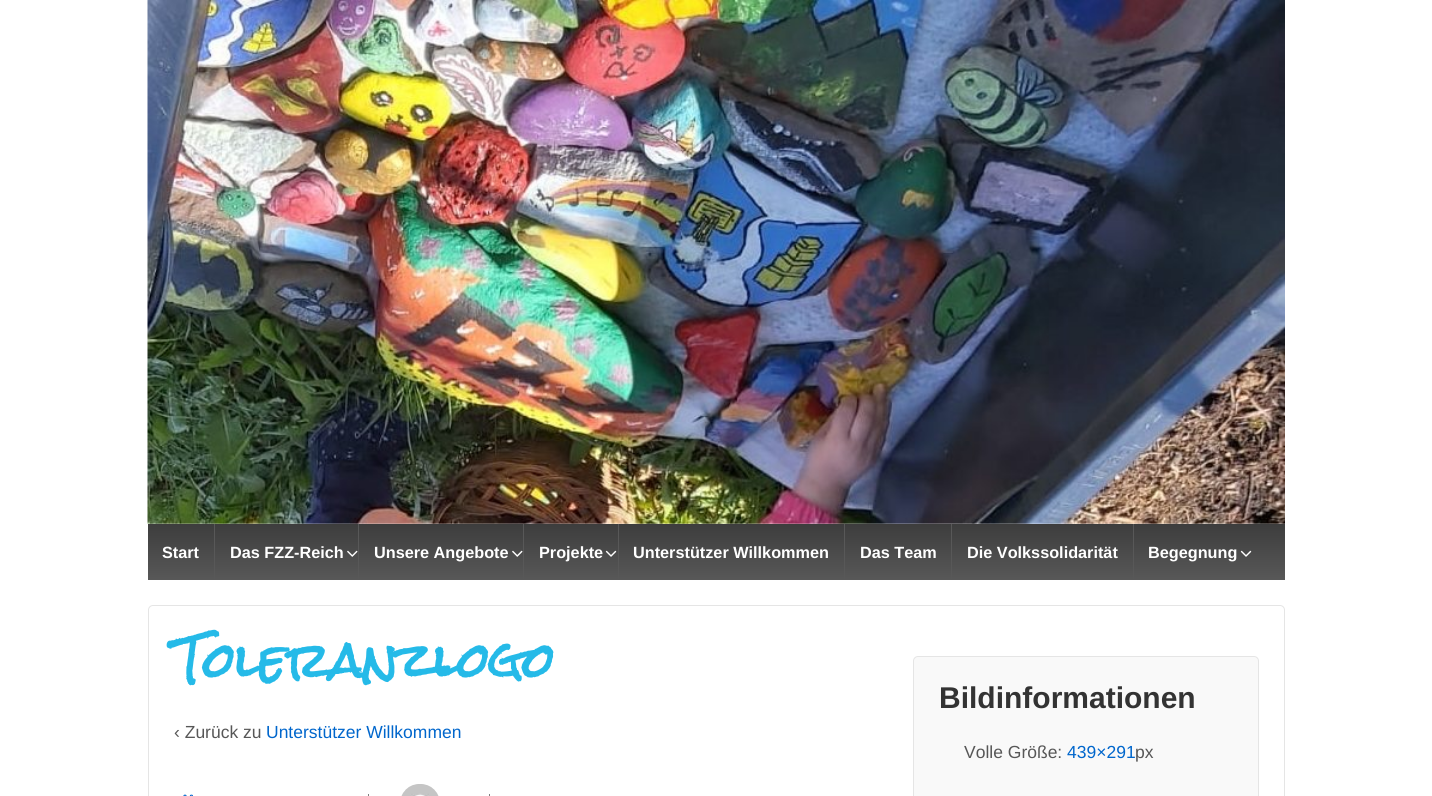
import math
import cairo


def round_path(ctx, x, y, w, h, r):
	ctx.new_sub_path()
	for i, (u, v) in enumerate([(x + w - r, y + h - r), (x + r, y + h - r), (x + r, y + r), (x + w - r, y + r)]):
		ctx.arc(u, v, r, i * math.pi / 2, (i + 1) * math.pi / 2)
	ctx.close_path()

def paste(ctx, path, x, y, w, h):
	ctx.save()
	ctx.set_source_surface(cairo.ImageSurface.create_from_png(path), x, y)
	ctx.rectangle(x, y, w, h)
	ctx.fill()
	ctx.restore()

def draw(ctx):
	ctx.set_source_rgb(1, 1, 1)
	ctx.paint()
	paste(ctx, 'media/1.png', 147, 0, 1138, 524)
	gradient = cairo.LinearGradient(716, 580, 716, 524)
	gradient.add_color_stop_rgba(0, 0.345, 0.345, 0.345, 1)
	gradient.add_color_stop_rgba(1, 0.239, 0.239, 0.239, 1)
	ctx.set_source(gradient)
	ctx.rectangle(148, 524, 1137, 56)
	ctx.fill()
	ctx.select_font_face('Liberation Sans', cairo.FONT_SLANT_NORMAL, cairo.FONT_WEIGHT_BOLD)
	ctx.set_font_size(16.25)
	ctx.set_source_rgb(1, 1, 1)
	ctx.move_to(162, 558)
	ctx.show_text('Start')
	ctx.set_source_rgb(0.345, 0.345, 0.345)
	ctx.rectangle(214, 524, 1, 56)
	ctx.fill()
	ctx.set_source_rgb(1, 1, 1)
	ctx.move_to(230, 558)
	ctx.show_text('Das FZZ-Reich')
	paste(ctx, 'media/2.png', 347, 550, 11, 7)
	ctx.set_source_rgb(0.345, 0.345, 0.345)
	ctx.rectangle(358, 524, 1, 56)
	ctx.fill()
	ctx.set_source_rgb(1, 1, 1)
	ctx.move_to(374, 558)
	ctx.show_text('Unsere Angebote')
	paste(ctx, 'media/2.png', 512, 550, 11, 7)
	ctx.set_source_rgb(0.345, 0.345, 0.345)
	ctx.rectangle(523, 524, 1, 56)
	ctx.fill()
	ctx.set_source_rgb(1, 1, 1)
	ctx.move_to(539, 558)
	ctx.show_text('Projekte')
	paste(ctx, 'media/3.png', 605, 550, 12, 7)
	ctx.set_source_rgb(0.345, 0.345, 0.345)
	ctx.rectangle(618, 524, 1, 56)
	ctx.fill()
	ctx.set_source_rgb(1, 1, 1)
	ctx.move_to(633, 558)
	ctx.show_text('Unterstützer Willkommen')
	ctx.set_source_rgb(0.345, 0.345, 0.345)
	ctx.rectangle(844, 524, 1, 56)
	ctx.fill()
	ctx.set_source_rgb(1, 1, 1)
	ctx.move_to(860, 558)
	ctx.show_text('Das Team')
	ctx.set_source_rgb(0.345, 0.345, 0.345)
	ctx.rectangle(951, 524, 1, 56)
	ctx.fill()
	ctx.set_source_rgb(1, 1, 1)
	ctx.move_to(967, 558)
	ctx.show_text('Die Volkssolidarität')
	ctx.set_source_rgb(0.345, 0.345, 0.345)
	ctx.rectangle(1133, 524, 1, 56)
	ctx.fill()
	ctx.set_source_rgb(1, 1, 1)
	ctx.move_to(1148, 558)
	ctx.show_text('Begegnung')
	paste(ctx, 'media/3.png', 1240, 550, 12, 7)
	round_path(ctx, 148.5, 605.5, 1136, 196, 4.5)
	ctx.set_source_rgb(0.898, 0.898, 0.898)
	ctx.set_line_width(1)
	ctx.stroke()
	ctx.select_font_face('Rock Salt', cairo.FONT_SLANT_NORMAL, cairo.FONT_WEIGHT_BOLD)
	ctx.set_font_size(46)
	ctx.set_source_rgb(0.145, 0.729, 0.91)
	ctx.move_to(174, 679)
	ctx.show_text('Toleranzlogo')
	ctx.select_font_face('Liberation Sans')
	ctx.set_font_size(17.5)
	ctx.set_source_rgb(0.341, 0.341, 0.341)
	ctx.move_to(174, 738)
	ctx.show_text('‹ Zurück zu')
	ctx.set_source_rgb(0, 0.4, 0.8)
	ctx.move_to(266, 738)
	ctx.show_text('Unterstützer Willkommen')
	paste(ctx, 'media/4.png', 183, 794, 10, 2)
	ctx.set_source_rgb(0.494, 0.494, 0.494)
	ctx.rectangle(368, 794, 1, 2)
	ctx.fill()
	paste(ctx, 'media/5.png', 401, 784, 38, 12)
	ctx.rectangle(489, 794, 1, 2)
	ctx.fill()
	ctx.set_source_rgb(0.976, 0.976, 0.976)
	round_path(ctx, 913.5, 656.5, 345, 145, 4.5)
	ctx.fill_preserve()
	ctx.set_source_rgb(0.898, 0.898, 0.898)
	ctx.stroke()
	ctx.select_font_face('Liberation Sans', cairo.FONT_SLANT_NORMAL, cairo.FONT_WEIGHT_BOLD)
	ctx.set_font_size(30)
	ctx.set_source_rgb(0.2, 0.2, 0.2)
	ctx.move_to(939, 708)
	ctx.show_text('Bildinformationen')
	ctx.select_font_face('Liberation Sans')
	ctx.set_font_size(17.5)
	ctx.set_source_rgb(0.341, 0.341, 0.341)
	ctx.move_to(964, 758)
	ctx.show_text('Volle Größe:')
	ctx.set_source_rgb(0, 0.4, 0.8)
	ctx.move_to(1067, 758)
	ctx.show_text('439×291')
	ctx.set_source_rgb(0.341, 0.341, 0.341)
	ctx.move_to(1135, 758)
	ctx.show_text('px')


surface = cairo.ImageSurface(cairo.FORMAT_RGB24, 1432, 796)
ctx = cairo.Context(surface)
options = cairo.FontOptions()
options.set_hint_metrics(cairo.HINT_METRICS_OFF)
options.set_hint_style(cairo.HINT_STYLE_NONE)
ctx.set_font_options(options)
ctx.set_miter_limit(4)
draw(ctx)
surface.write_to_png('image.png')
